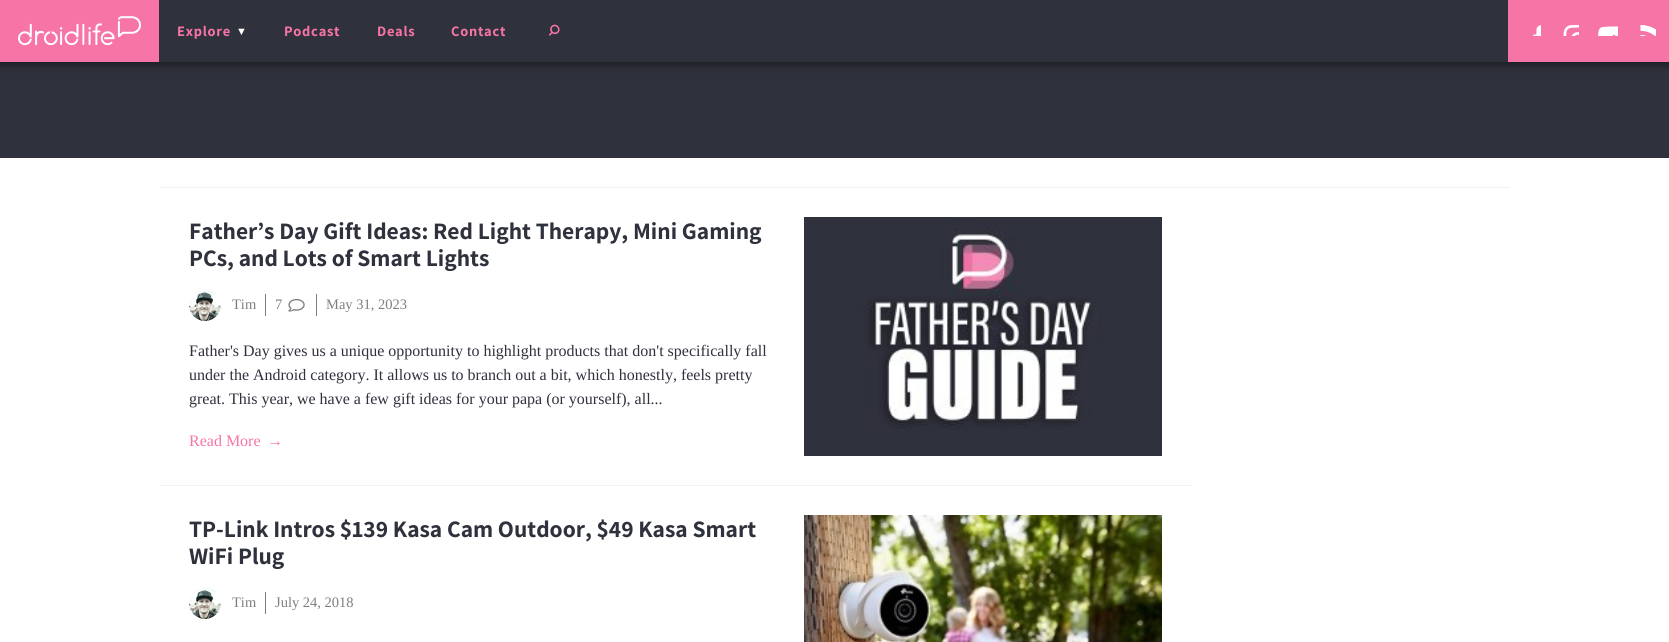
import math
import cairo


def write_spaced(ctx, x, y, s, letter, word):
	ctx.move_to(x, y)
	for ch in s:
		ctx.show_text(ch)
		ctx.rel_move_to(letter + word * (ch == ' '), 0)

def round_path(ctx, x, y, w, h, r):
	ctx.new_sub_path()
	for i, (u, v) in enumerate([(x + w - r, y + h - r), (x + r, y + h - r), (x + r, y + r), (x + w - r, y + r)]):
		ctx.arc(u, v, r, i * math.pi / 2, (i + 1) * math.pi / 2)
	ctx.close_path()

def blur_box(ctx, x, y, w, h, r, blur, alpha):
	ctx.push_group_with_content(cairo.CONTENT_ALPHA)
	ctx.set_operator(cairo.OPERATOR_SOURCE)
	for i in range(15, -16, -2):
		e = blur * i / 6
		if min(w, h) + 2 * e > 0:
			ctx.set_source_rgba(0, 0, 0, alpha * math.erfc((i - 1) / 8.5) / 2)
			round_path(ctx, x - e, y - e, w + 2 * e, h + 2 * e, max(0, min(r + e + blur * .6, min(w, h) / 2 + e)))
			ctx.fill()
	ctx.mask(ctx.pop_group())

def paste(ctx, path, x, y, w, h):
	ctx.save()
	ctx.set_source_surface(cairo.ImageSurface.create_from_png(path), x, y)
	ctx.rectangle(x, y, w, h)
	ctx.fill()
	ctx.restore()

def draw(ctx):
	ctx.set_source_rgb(1, 1, 1)
	ctx.paint()
	ctx.set_source_rgb(0.184, 0.192, 0.235)
	ctx.rectangle(0, 62, 1669, 96)
	ctx.fill()
	ctx.set_source_rgb(0, 0, 0)
	blur_box(ctx, -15, -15, 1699, 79, 0, 5, 0.5)
	ctx.set_source_rgb(0.965, 0.455, 0.651)
	ctx.rectangle(0, 0, 159, 62)
	ctx.fill()
	paste(ctx, 'media/1.png', 18, 16, 123, 30)
	ctx.set_source_rgb(0.184, 0.192, 0.235)
	ctx.rectangle(159, 0, 1349, 62)
	ctx.fill()
	ctx.select_font_face('Assistant ExtraLight')
	ctx.set_font_size(14.5)
	ctx.set_source_rgb(0.965, 0.455, 0.651)
	write_spaced(ctx, 177, 36, 'Explore', 0.75, 0)
	ctx.select_font_face('Liberation Sans')
	ctx.set_font_size(11)
	ctx.set_source_rgb(1, 1, 1)
	write_spaced(ctx, 236, 35, '▼', 0.75, 0)
	ctx.select_font_face('Assistant ExtraLight')
	ctx.set_font_size(14.5)
	ctx.set_source_rgb(0.965, 0.455, 0.651)
	for x, y, s in [
		(284, 36, 'Podcast'),
		(377, 36, 'Deals'),
		(451, 36, 'Contact'),
	]:
		write_spaced(ctx, x, y, s, 0.75, 0)
	paste(ctx, 'media/2.png', 548, 24, 12, 12)
	ctx.rectangle(1508, 0, 161, 62)
	ctx.fill()
	paste(ctx, 'media/3.png', 1533, 25, 8, 11)
	paste(ctx, 'media/4.png', 1563, 25, 16, 11)
	paste(ctx, 'media/5.png', 1598, 26, 20, 10)
	paste(ctx, 'media/6.png', 1640, 25, 16, 11)
	ctx.set_source_rgb(0.949, 0.949, 0.953)
	ctx.rectangle(160, 187, 1350, 1)
	ctx.fill()
	ctx.set_font_size(23.6)
	ctx.set_source_rgb(0.184, 0.192, 0.235)
	ctx.move_to(189, 239)
	ctx.show_text('Father’s Day Gift Ideas: Red Light Therapy, Mini Gaming')
	ctx.move_to(189, 266)
	ctx.show_text('PCs, and Lots of Smart Lights')
	paste(ctx, 'media/7.png', 189, 289, 32, 32)
	ctx.select_font_face('Liberation Serif')
	ctx.set_font_size(14.5)
	ctx.set_source_rgb(0.494, 0.498, 0.506)
	ctx.move_to(232, 309)
	ctx.show_text('Tim')
	ctx.rectangle(265, 294, 1, 22)
	ctx.fill()
	ctx.move_to(275, 309)
	ctx.show_text('7')
	paste(ctx, 'media/8.png', 288, 298, 17, 14)
	ctx.rectangle(316, 294, 1, 22)
	ctx.fill()
	ctx.move_to(326, 309)
	ctx.show_text('May 31, 2023')
	ctx.set_font_size(16)
	ctx.set_source_rgb(0.184, 0.192, 0.235)
	for x, y, s in [
		(189, 356, 'Father\'s Day gives us a unique opportunity to highlight products that don\'t specifically fall'),
		(189, 380, 'under the Android category. It allows us to branch out a bit, which honestly, feels pretty'),
		(189, 404, 'great. This year, we have a few gift ideas for your papa (or yourself), all...'),
	]:
		ctx.move_to(x, y)
		ctx.show_text(s)
	ctx.set_source_rgb(0.965, 0.455, 0.651)
	ctx.move_to(189, 446)
	ctx.show_text('Read More')
	ctx.move_to(267, 446)
	ctx.show_text('→')
	paste(ctx, 'media/9.png', 804, 217, 358, 239)
	ctx.set_source_rgb(0.949, 0.949, 0.953)
	ctx.rectangle(160, 485, 1032, 1)
	ctx.fill()
	ctx.select_font_face('Assistant ExtraLight')
	ctx.set_font_size(23.6)
	ctx.set_source_rgb(0.184, 0.192, 0.235)
	ctx.move_to(189, 537)
	ctx.show_text('TP-Link Intros $139 Kasa Cam Outdoor, $49 Kasa Smart')
	ctx.move_to(189, 564)
	ctx.show_text('WiFi Plug')
	paste(ctx, 'media/7.png', 189, 587, 32, 32)
	ctx.select_font_face('Liberation Serif')
	ctx.set_font_size(14.5)
	ctx.set_source_rgb(0.494, 0.498, 0.506)
	ctx.move_to(232, 607)
	ctx.show_text('Tim')
	ctx.rectangle(265, 592, 1, 22)
	ctx.fill()
	ctx.move_to(275, 607)
	ctx.show_text('July 24, 2018')
	paste(ctx, 'media/10.png', 804, 515, 358, 127)


surface = cairo.ImageSurface(cairo.FORMAT_RGB24, 1669, 642)
ctx = cairo.Context(surface)
options = cairo.FontOptions()
options.set_hint_metrics(cairo.HINT_METRICS_OFF)
options.set_hint_style(cairo.HINT_STYLE_NONE)
ctx.set_font_options(options)
ctx.set_miter_limit(4)
draw(ctx)
surface.write_to_png('image.png')
